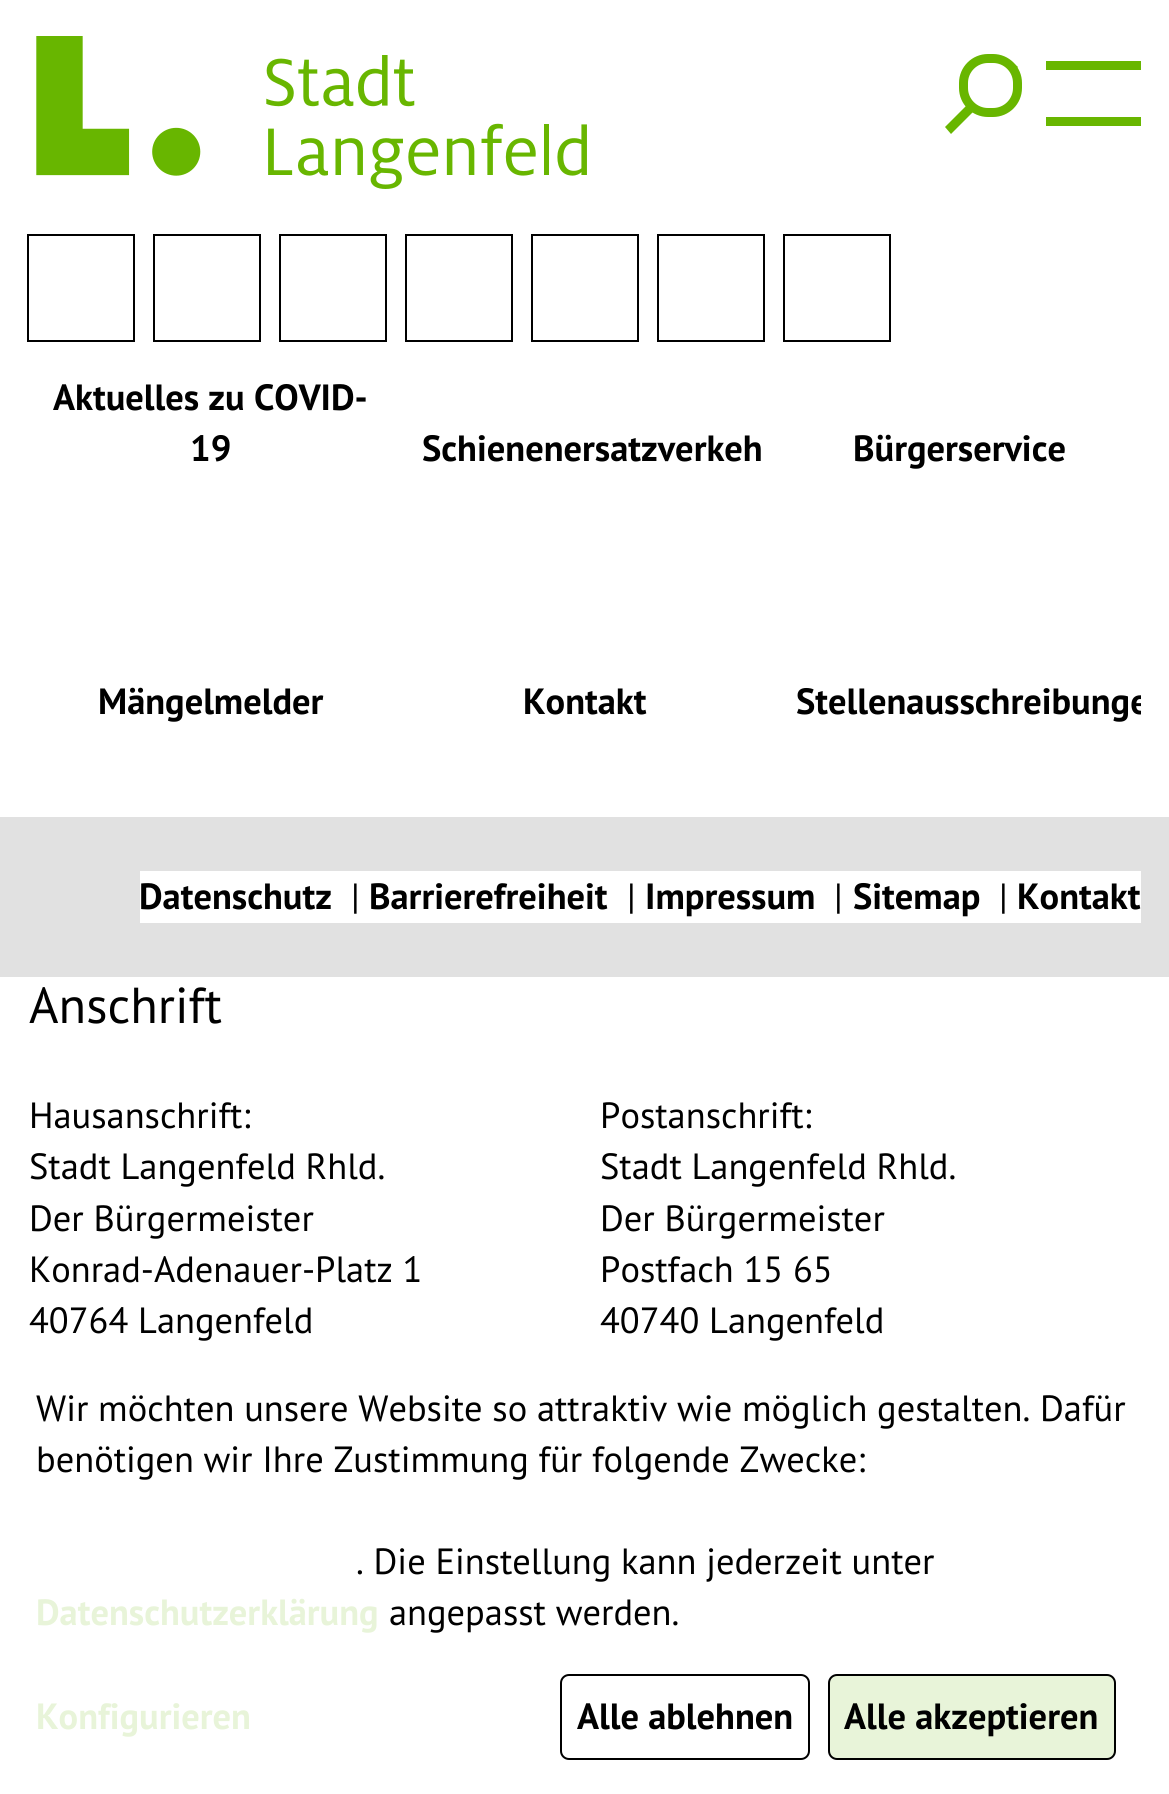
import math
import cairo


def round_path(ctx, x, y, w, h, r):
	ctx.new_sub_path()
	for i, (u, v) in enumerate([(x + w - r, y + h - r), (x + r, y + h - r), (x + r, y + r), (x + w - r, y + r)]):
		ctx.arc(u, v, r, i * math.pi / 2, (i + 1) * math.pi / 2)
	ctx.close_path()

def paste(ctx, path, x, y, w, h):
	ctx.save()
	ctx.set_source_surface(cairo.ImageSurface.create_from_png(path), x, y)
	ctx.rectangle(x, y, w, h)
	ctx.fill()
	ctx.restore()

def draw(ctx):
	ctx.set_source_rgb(1, 1, 1)
	ctx.paint()
	ctx.set_source_rgb(0.408, 0.714, 0)
	ctx.new_path()
	ctx.move_to(945, 127)
	ctx.line_to(1011, 61)
	ctx.line_to(1018, 67)
	ctx.line_to(951, 134)
	ctx.close_path()
	ctx.fill()
	ctx.set_source_rgb(1, 1, 1)
	round_path(ctx, 963.5, 58.5, 54, 54, 24.5)
	ctx.fill_preserve()
	ctx.set_source_rgb(0.408, 0.714, 0)
	ctx.set_line_width(9)
	ctx.stroke()
	ctx.rectangle(1046, 61, 95, 9)
	ctx.fill()
	ctx.rectangle(1046, 117, 95, 9)
	ctx.fill()
	paste(ctx, 'media/1.png', 36, 36, 551, 153)
	ctx.rectangle(28, 235, 106, 106)
	ctx.set_source_rgb(0, 0, 0)
	ctx.set_line_width(2)
	ctx.stroke()
	ctx.rectangle(154, 235, 106, 106)
	ctx.stroke()
	ctx.rectangle(280, 235, 106, 106)
	ctx.stroke()
	ctx.rectangle(406, 235, 106, 106)
	ctx.stroke()
	ctx.rectangle(532, 235, 106, 106)
	ctx.stroke()
	ctx.rectangle(658, 235, 106, 106)
	ctx.stroke()
	ctx.rectangle(784, 235, 106, 106)
	ctx.stroke()
	ctx.select_font_face('PT Sans', cairo.FONT_SLANT_NORMAL, cairo.FONT_WEIGHT_BOLD)
	ctx.set_font_size(36.45)
	for x, y, s in [
		(53, 410, 'Aktuelles zu COVID-'),
		(190, 461, '19'),
		(422, 461, 'Schienenersatzverkeh'),
		(853, 461, 'Bürgerservice'),
		(98, 714, 'Mängelmelder'),
		(523, 714, 'Kontakt'),
	]:
		ctx.move_to(x, y)
		ctx.show_text(s)
	ctx.save()
	ctx.rectangle(779, 504, 362, 241)
	ctx.clip()
	ctx.move_to(796, 714)
	ctx.show_text('Stellenausschreibunge')
	ctx.restore()
	ctx.set_source_rgb(0.882, 0.882, 0.882)
	ctx.rectangle(0, 817, 1169, 160)
	ctx.fill()
	ctx.set_source_rgb(1, 1, 1)
	ctx.rectangle(140, 871, 1001, 52)
	ctx.fill()
	ctx.set_source_rgb(0, 0, 0)
	ctx.move_to(139, 909)
	ctx.show_text('Datenschutz')
	ctx.select_font_face('PT Sans')
	ctx.move_to(351, 909)
	ctx.show_text('|')
	ctx.select_font_face('PT Sans', cairo.FONT_SLANT_NORMAL, cairo.FONT_WEIGHT_BOLD)
	ctx.move_to(369, 909)
	ctx.show_text('Barrierefreiheit')
	ctx.select_font_face('PT Sans')
	ctx.move_to(627, 909)
	ctx.show_text('|')
	ctx.select_font_face('PT Sans', cairo.FONT_SLANT_NORMAL, cairo.FONT_WEIGHT_BOLD)
	ctx.move_to(645, 909)
	ctx.show_text('Impressum')
	ctx.select_font_face('PT Sans')
	ctx.move_to(834, 909)
	ctx.show_text('|')
	ctx.select_font_face('PT Sans', cairo.FONT_SLANT_NORMAL, cairo.FONT_WEIGHT_BOLD)
	ctx.move_to(853, 909)
	ctx.show_text('Sitemap')
	ctx.select_font_face('PT Sans')
	ctx.move_to(999, 909)
	ctx.show_text('|')
	ctx.select_font_face('PT Sans', cairo.FONT_SLANT_NORMAL, cairo.FONT_WEIGHT_BOLD)
	ctx.move_to(1017, 909)
	ctx.show_text('Kontakt')
	ctx.select_font_face('PT Sans')
	ctx.set_font_size(50.5)
	ctx.move_to(29, 1023)
	ctx.show_text('Anschrift')
	ctx.set_font_size(36.45)
	for x, y, s in [
		(29, 1128, 'Hausanschrift:'),
		(29, 1179, 'Stadt Langenfeld Rhld.'),
		(29, 1231, 'Der Bürgermeister'),
		(29, 1282, 'Konrad-Adenauer-Platz 1'),
		(29, 1333, '40764 Langenfeld'),
		(600, 1128, 'Postanschrift:'),
		(600, 1179, 'Stadt Langenfeld Rhld.'),
		(600, 1231, 'Der Bürgermeister'),
		(600, 1282, 'Postfach 15 65'),
		(600, 1333, '40740 Langenfeld'),
		(36, 1421, 'Wir möchten unsere Website so attraktiv wie möglich gestalten. Dafür'),
		(36, 1472, 'benötigen wir Ihre Zustimmung für folgende Zwecke:'),
		(356, 1574, '. Die Einstellung kann jederzeit unter'),
	]:
		ctx.move_to(x, y)
		ctx.show_text(s)
	ctx.select_font_face('PT Sans', cairo.FONT_SLANT_NORMAL, cairo.FONT_WEIGHT_BOLD)
	ctx.set_source_rgb(0.91, 0.957, 0.851)
	ctx.move_to(36, 1625)
	ctx.show_text('Datenschutzerklärung')
	ctx.select_font_face('PT Sans')
	ctx.set_source_rgb(0, 0, 0)
	ctx.move_to(389, 1625)
	ctx.show_text('angepasst werden.')
	ctx.select_font_face('PT Sans', cairo.FONT_SLANT_NORMAL, cairo.FONT_WEIGHT_BOLD)
	ctx.set_source_rgb(0.91, 0.957, 0.851)
	ctx.move_to(36, 1729)
	ctx.show_text('Konfigurieren')
	round_path(ctx, 561, 1675, 248, 84, 8)
	ctx.set_source_rgb(0, 0, 0)
	ctx.stroke()
	ctx.move_to(577, 1729)
	ctx.show_text('Alle ablehnen')
	ctx.set_source_rgb(0.91, 0.957, 0.851)
	round_path(ctx, 829, 1675, 286, 84, 8)
	ctx.fill_preserve()
	ctx.set_source_rgb(0, 0, 0)
	ctx.stroke()
	ctx.move_to(844, 1729)
	ctx.show_text('Alle akzeptieren')


surface = cairo.ImageSurface(cairo.FORMAT_RGB24, 1169, 1794)
ctx = cairo.Context(surface)
options = cairo.FontOptions()
options.set_hint_metrics(cairo.HINT_METRICS_OFF)
options.set_hint_style(cairo.HINT_STYLE_NONE)
ctx.set_font_options(options)
ctx.set_miter_limit(4)
draw(ctx)
surface.write_to_png('image.png')
